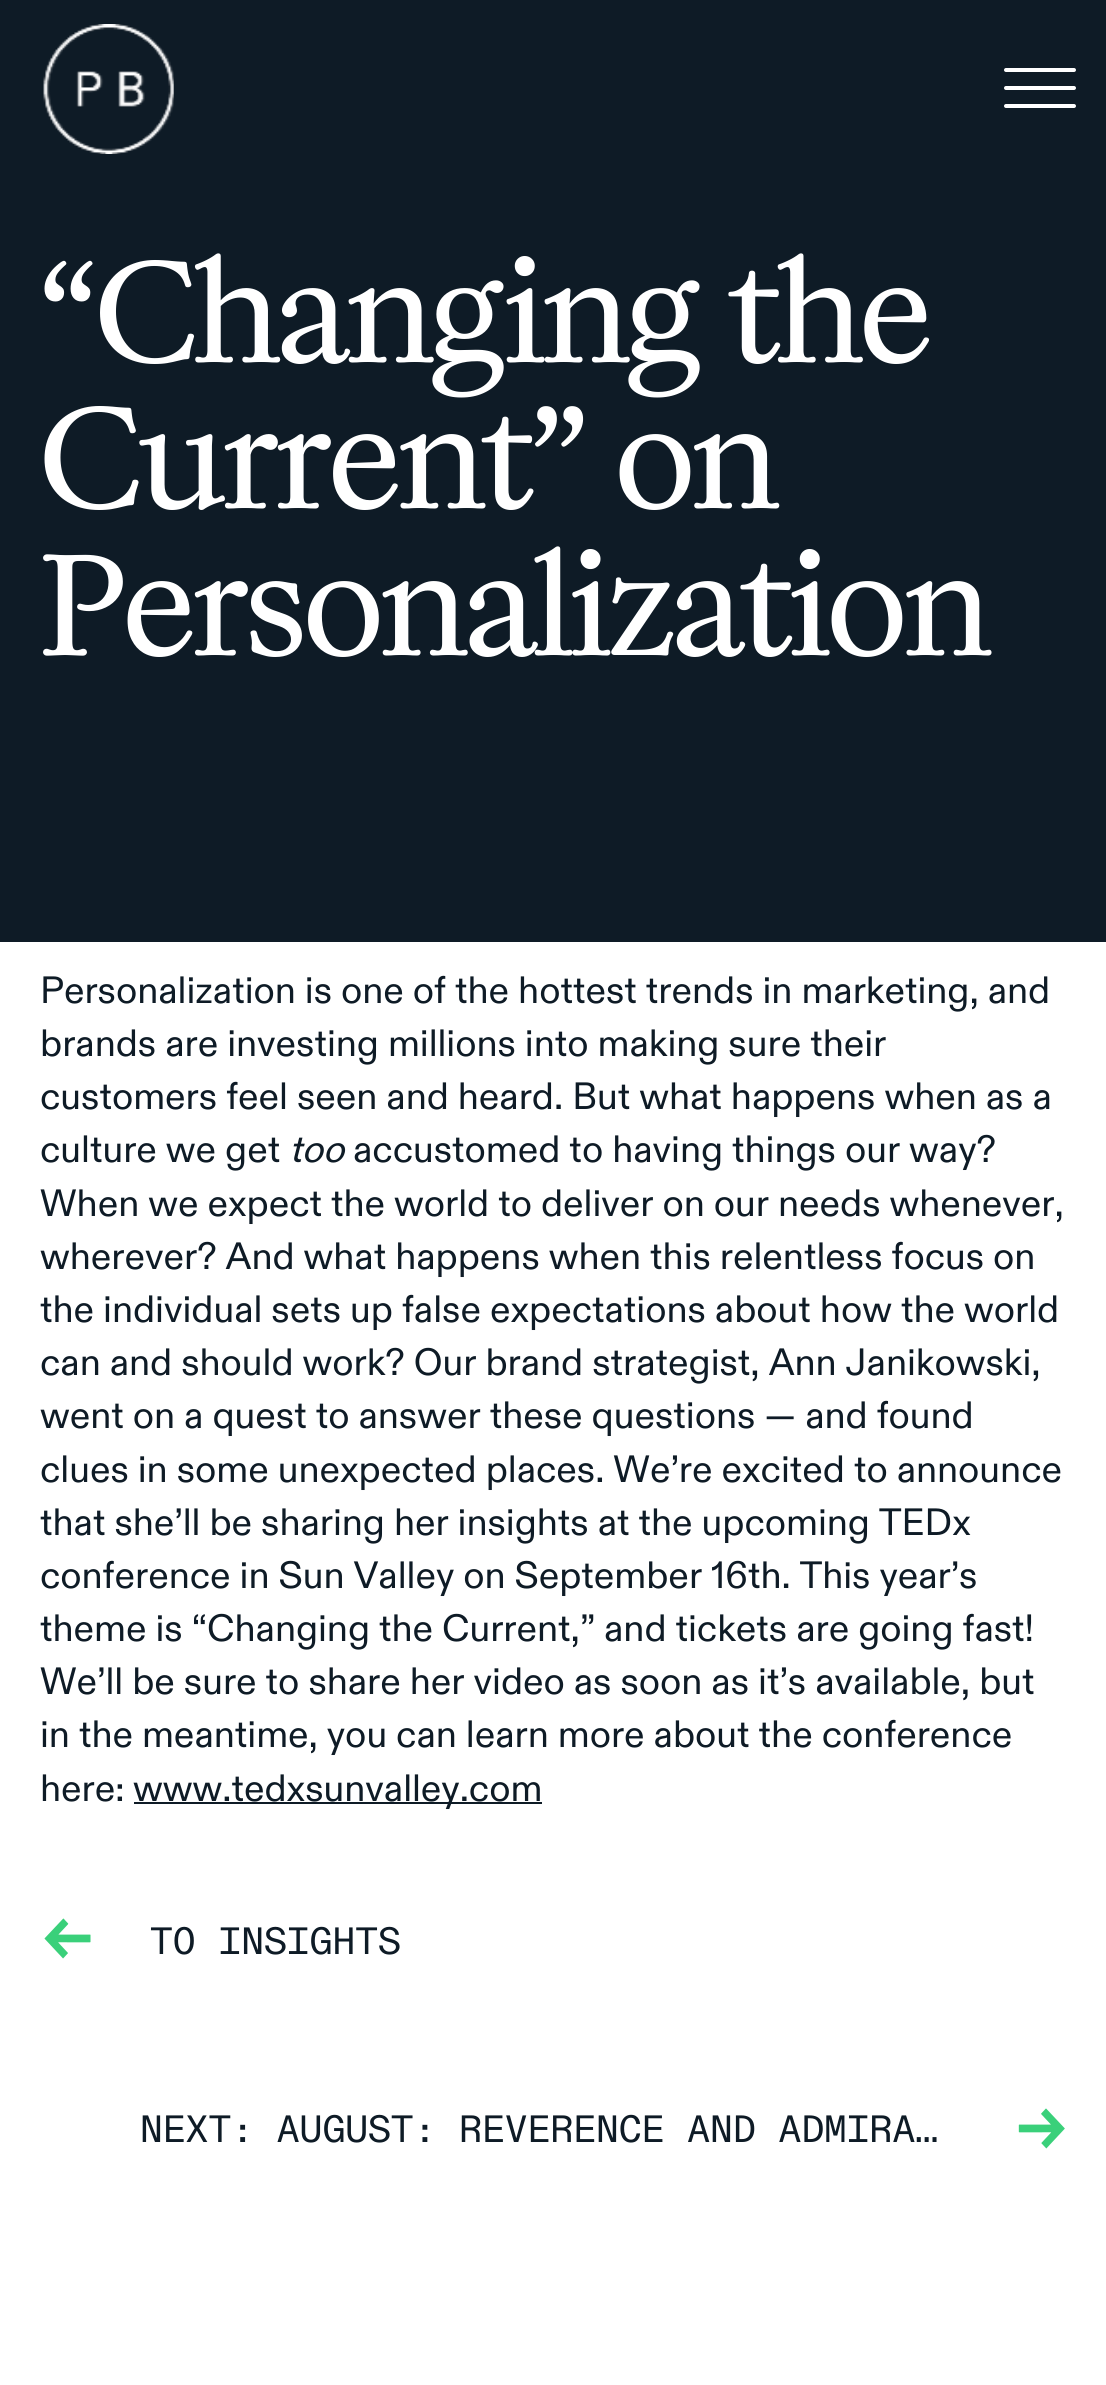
import math
import cairo


def round_path(ctx, x, y, w, h, r):
	ctx.new_sub_path()
	for i, (u, v) in enumerate([(x + w - r, y + h - r), (x + r, y + h - r), (x + r, y + r), (x + w - r, y + r)]):
		ctx.arc(u, v, r, i * math.pi / 2, (i + 1) * math.pi / 2)
	ctx.close_path()

def paste(ctx, path, x, y, w, h):
	ctx.save()
	ctx.set_source_surface(cairo.ImageSurface.create_from_png(path), x, y)
	ctx.rectangle(x, y, w, h)
	ctx.fill()
	ctx.restore()

def draw(ctx):
	ctx.set_source_rgb(1, 1, 1)
	ctx.paint()
	ctx.set_source_rgb(0.055, 0.106, 0.149)
	ctx.rectangle(0, 0, 1106, 942)
	ctx.fill()
	paste(ctx, 'media/1.png', 43, 24, 131, 130)
	ctx.set_source_rgb(1, 1, 1)
	round_path(ctx, 1004, 86, 72, 4, 2)
	ctx.fill()
	round_path(ctx, 1004, 68, 72, 4, 2)
	ctx.fill()
	round_path(ctx, 1004, 104, 72, 4, 2)
	ctx.fill()
	ctx.select_font_face('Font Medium')
	ctx.set_font_size(133)
	for x, y, s in [
		(40, 362, '“Changing the'),
		(40, 508, 'Current” on'),
		(40, 655, 'Personalization'),
	]:
		ctx.move_to(x, y)
		ctx.show_text(s)
	ctx.select_font_face('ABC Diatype')
	ctx.set_font_size(38)
	ctx.set_source_rgb(0.055, 0.106, 0.149)
	for x, y, s in [
		(40, 1003, 'Personalization is one of the hottest trends in marketing, and'),
		(40, 1056, 'brands are investing millions into making sure their'),
		(40, 1109, 'customers feel seen and heard. But what happens when as a'),
		(40, 1162, 'culture we get'),
	]:
		ctx.move_to(x, y)
		ctx.show_text(s)
	ctx.select_font_face('ABC Diatype', cairo.FONT_SLANT_ITALIC)
	ctx.move_to(289, 1162)
	ctx.show_text('too')
	ctx.select_font_face('ABC Diatype')
	for x, y, s in [
		(353, 1162, 'accustomed to having things our way?'),
		(40, 1216, 'When we expect the world to deliver on our needs whenever,'),
		(40, 1269, 'wherever? And what happens when this relentless focus on'),
		(40, 1322, 'the individual sets up false expectations about how the world'),
		(40, 1375, 'can and should work? Our brand strategist, Ann Janikowski,'),
		(40, 1428, 'went on a quest to answer these questions — and found'),
		(40, 1482, 'clues in some unexpected places. We’re excited to announce'),
		(40, 1535, 'that she’ll be sharing her insights at the upcoming TEDx'),
		(40, 1588, 'conference in Sun Valley on September 16th. This year’s'),
		(40, 1641, 'theme is “Changing the Current,” and tickets are going fast!'),
		(40, 1694, 'We’ll be sure to share her video as soon as it’s available, but'),
		(40, 1747, 'in the meantime, you can learn more about the conference'),
		(40, 1801, 'here:'),
	]:
		ctx.move_to(x, y)
		ctx.show_text(s)
	ctx.rectangle(134, 1802, 408, 2)
	ctx.fill()
	ctx.move_to(133, 1801)
	ctx.show_text('www.tedxsunvalley.com')
	paste(ctx, 'media/2.png', 44, 1918, 47, 41)
	ctx.select_font_face('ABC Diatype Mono')
	ctx.move_to(150, 1954)
	ctx.show_text('TO INSIGHTS')
	ctx.move_to(140, 2142)
	ctx.show_text('NEXT: AUGUST: REVERENCE AND ADMIRA…')
	paste(ctx, 'media/3.png', 1018, 2108, 47, 41)


surface = cairo.ImageSurface(cairo.FORMAT_RGB24, 1106, 2385)
ctx = cairo.Context(surface)
options = cairo.FontOptions()
options.set_hint_metrics(cairo.HINT_METRICS_OFF)
options.set_hint_style(cairo.HINT_STYLE_NONE)
ctx.set_font_options(options)
ctx.set_miter_limit(4)
draw(ctx)
surface.write_to_png('image.png')
